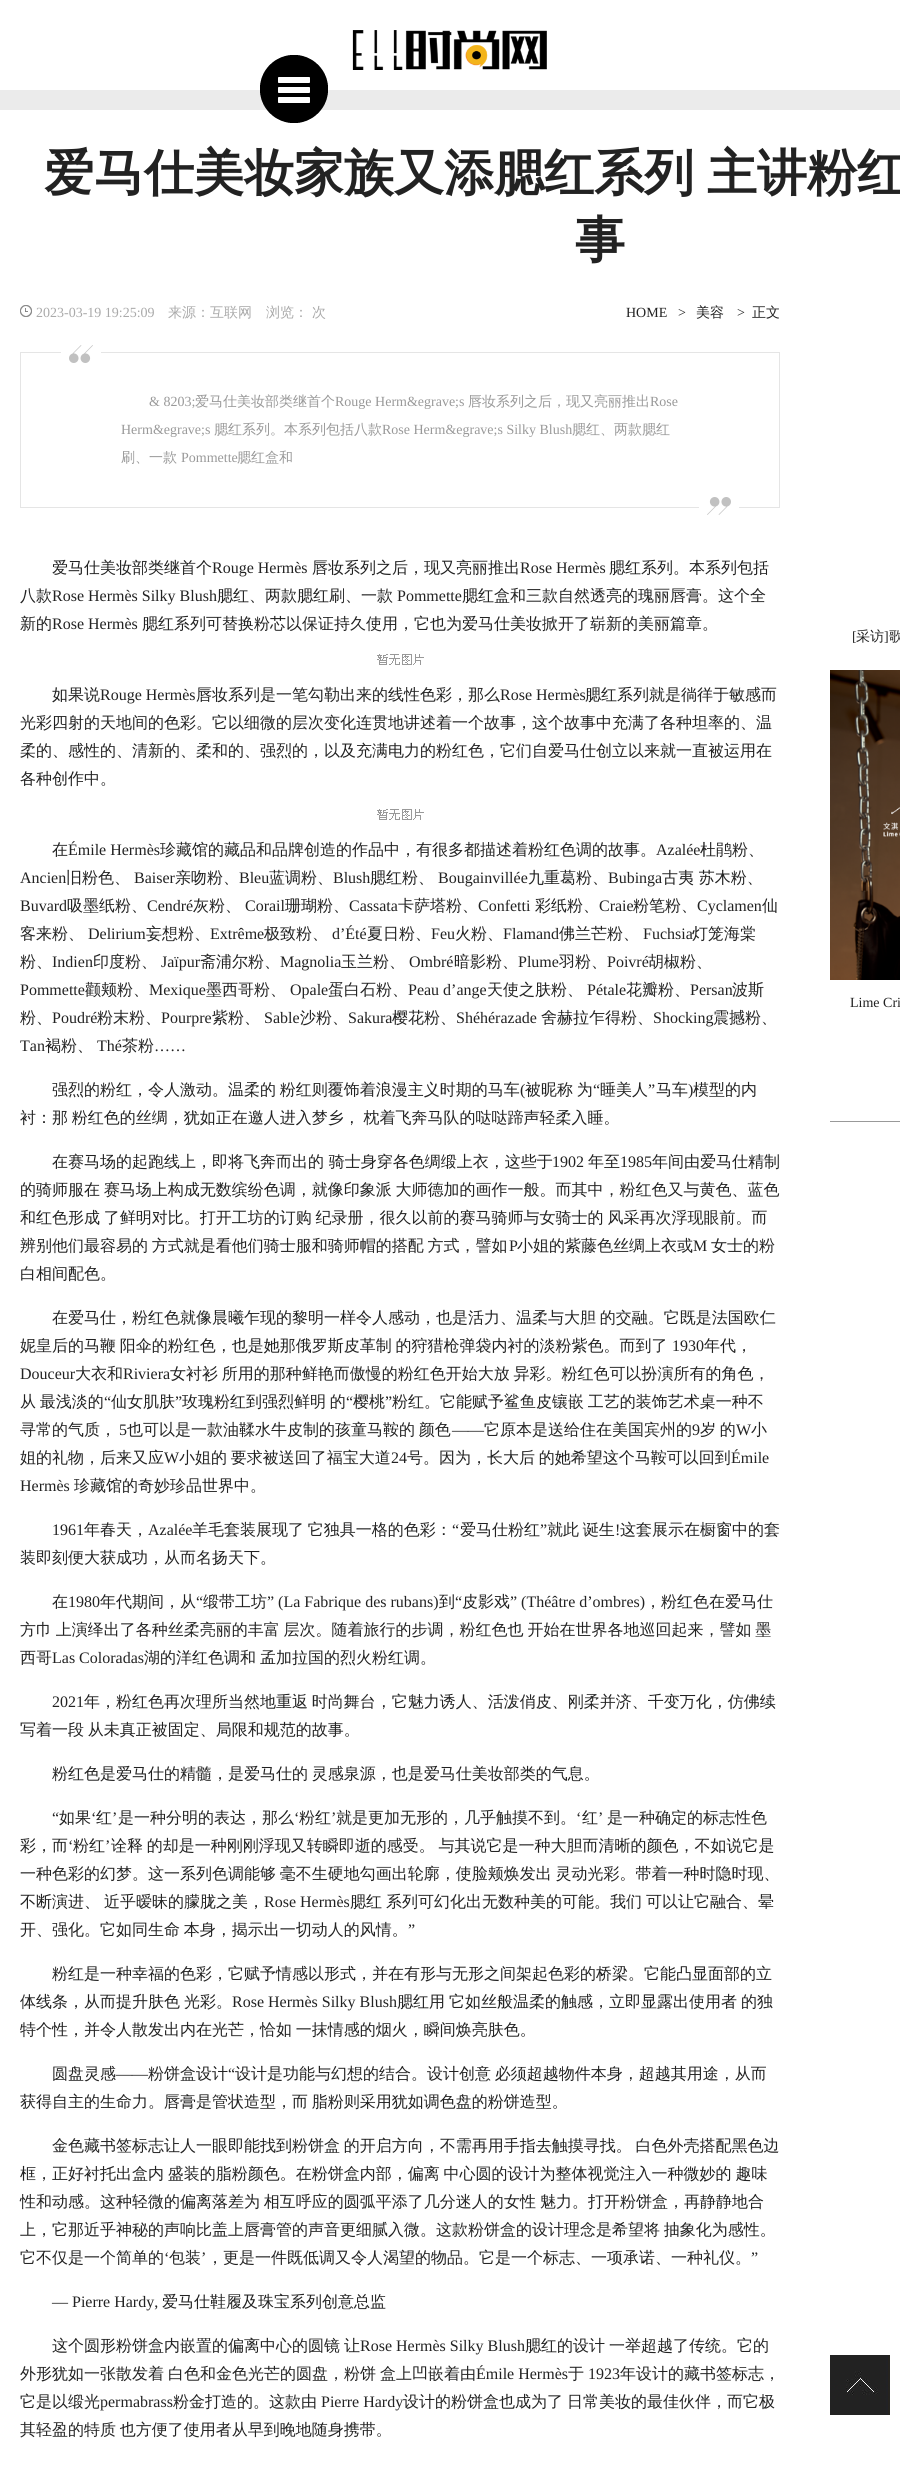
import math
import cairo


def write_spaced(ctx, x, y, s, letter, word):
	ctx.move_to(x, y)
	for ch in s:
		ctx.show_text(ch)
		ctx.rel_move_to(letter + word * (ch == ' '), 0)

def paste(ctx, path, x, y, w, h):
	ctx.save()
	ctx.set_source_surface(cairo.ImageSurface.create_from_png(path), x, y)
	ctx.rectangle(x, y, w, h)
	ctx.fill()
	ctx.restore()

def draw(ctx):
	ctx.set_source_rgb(0.918, 0.918, 0.918)
	ctx.paint()
	ctx.set_source_rgb(1, 1, 1)
	ctx.rectangle(0, 0, 900, 90)
	ctx.fill()
	paste(ctx, 'media/1.png', 352, 30, 195, 40)
	ctx.rectangle(0, 110, 900, 2356)
	ctx.fill()
	paste(ctx, 'media/2.png', 260, 55, 68, 68)
	ctx.select_font_face('WenQuanYi Zen Hei', cairo.FONT_SLANT_NORMAL, cairo.FONT_WEIGHT_BOLD)
	ctx.set_font_size(50)
	ctx.set_source_rgb(0.133, 0.133, 0.133)
	write_spaced(ctx, 44, 190, '爱马仕美妆家族又添腮红系列 主讲粉红', 0, -2)
	ctx.move_to(575, 257)
	ctx.show_text('事')
	paste(ctx, 'media/3.png', 20, 305, 12, 12)
	ctx.select_font_face('Liberation Serif')
	ctx.set_font_size(14)
	ctx.set_source_rgb(0.667, 0.667, 0.667)
	ctx.move_to(36, 317)
	ctx.show_text('2023-03-19 19:25:09')
	ctx.select_font_face('WenQuanYi Zen Hei Medium')
	for x, y, s in [
		(168, 317, '来源：互联网'),
		(266, 317, '浏览：'),
		(312, 317, '次'),
	]:
		ctx.move_to(x, y)
		ctx.show_text(s)
	ctx.select_font_face('Liberation Serif')
	ctx.set_source_rgb(0.133, 0.133, 0.133)
	ctx.move_to(626, 317)
	ctx.show_text('HOME')
	ctx.move_to(678, 317)
	ctx.show_text('>')
	ctx.select_font_face('WenQuanYi Zen Hei Medium')
	ctx.move_to(696, 317)
	ctx.show_text('美容')
	ctx.select_font_face('Liberation Serif')
	ctx.move_to(737, 317)
	ctx.show_text('>')
	ctx.select_font_face('WenQuanYi Zen Hei Medium')
	ctx.move_to(752, 317)
	ctx.show_text('正文')
	ctx.rectangle(20.5, 352.5, 759, 155)
	ctx.set_source_rgb(0.898, 0.898, 0.898)
	ctx.set_line_width(1)
	ctx.stroke()
	ctx.set_source_rgb(1, 1, 1)
	ctx.rectangle(61, 352, 40, 1)
	ctx.fill()
	paste(ctx, 'media/4.png', 69, 345, 24, 18)
	ctx.select_font_face('Liberation Serif')
	ctx.set_source_rgb(0.6, 0.6, 0.6)
	ctx.move_to(149, 406)
	ctx.show_text('& 8203;')
	ctx.select_font_face('WenQuanYi Zen Hei Medium')
	ctx.move_to(195, 406)
	ctx.show_text('爱马仕美妆部类继首个')
	ctx.select_font_face('Liberation Serif')
	ctx.move_to(335, 406)
	ctx.show_text('Rouge Herm&egrave;s')
	ctx.select_font_face('WenQuanYi Zen Hei Medium')
	ctx.move_to(468, 406)
	ctx.show_text('唇妆系列之后，现又亮丽推出')
	ctx.select_font_face('Liberation Serif')
	ctx.move_to(650, 406)
	ctx.show_text('Rose')
	ctx.move_to(121, 434)
	ctx.show_text('Herm&egrave;s')
	ctx.select_font_face('WenQuanYi Zen Hei Medium')
	ctx.move_to(214, 434)
	ctx.show_text('腮红系列。本系列包括八款')
	ctx.select_font_face('Liberation Serif')
	ctx.move_to(382, 434)
	ctx.show_text('Rose Herm&egrave;s Silky Blush')
	ctx.select_font_face('WenQuanYi Zen Hei Medium')
	ctx.move_to(572, 434)
	ctx.show_text('腮红、两款腮红')
	ctx.move_to(121, 462)
	ctx.show_text('刷、一款')
	ctx.select_font_face('Liberation Serif')
	ctx.move_to(181, 462)
	ctx.show_text('Pommette')
	ctx.select_font_face('WenQuanYi Zen Hei Medium')
	ctx.move_to(237, 462)
	ctx.show_text('腮红盒和')
	ctx.set_source_rgb(1, 1, 1)
	ctx.rectangle(699, 507, 40, 1)
	ctx.fill()
	paste(ctx, 'media/5.png', 707, 497, 24, 18)
	ctx.set_font_size(16)
	ctx.set_source_rgb(0.133, 0.133, 0.133)
	ctx.move_to(52, 573)
	ctx.show_text('爱马仕美妆部类继首个')
	ctx.select_font_face('Liberation Serif')
	ctx.move_to(212, 573)
	ctx.show_text('Rouge Hermès')
	ctx.select_font_face('WenQuanYi Zen Hei Medium')
	ctx.move_to(312, 573)
	ctx.show_text('唇妆系列之后，现又亮丽推出')
	ctx.select_font_face('Liberation Serif')
	ctx.move_to(520, 573)
	ctx.show_text('Rose Hermès')
	ctx.select_font_face('WenQuanYi Zen Hei Medium')
	ctx.move_to(609, 573)
	ctx.show_text('腮红系列。本系列包括')
	ctx.move_to(20, 601)
	ctx.show_text('八款')
	ctx.select_font_face('Liberation Serif')
	ctx.move_to(52, 601)
	ctx.show_text('Rose Hermès Silky Blush')
	ctx.select_font_face('WenQuanYi Zen Hei Medium')
	ctx.move_to(217, 601)
	ctx.show_text('腮红、两款腮红刷、一款')
	ctx.select_font_face('Liberation Serif')
	ctx.move_to(397, 601)
	ctx.show_text('Pommette')
	ctx.select_font_face('WenQuanYi Zen Hei Medium')
	ctx.move_to(462, 601)
	ctx.show_text('腮红盒和三款自然透亮的瑰丽唇膏。这个全')
	ctx.move_to(20, 629)
	ctx.show_text('新的')
	ctx.select_font_face('Liberation Serif')
	ctx.move_to(52, 629)
	ctx.show_text('Rose Hermès')
	ctx.select_font_face('WenQuanYi Zen Hei Medium')
	ctx.move_to(142, 629)
	ctx.show_text('腮红系列可替换粉芯以保证持久使用，它也为爱马仕美妆掀开了崭新的美丽篇章。')
	paste(ctx, 'media/6.png', 377, 654, 47, 11)
	ctx.move_to(52, 700)
	ctx.show_text('如果说')
	ctx.select_font_face('Liberation Serif')
	ctx.move_to(100, 700)
	ctx.show_text('Rouge Hermès')
	ctx.select_font_face('WenQuanYi Zen Hei Medium')
	ctx.move_to(196, 700)
	ctx.show_text('唇妆系列是一笔勾勒出来的线性色彩，那么')
	ctx.select_font_face('Liberation Serif')
	ctx.move_to(500, 700)
	ctx.show_text('Rose Hermès')
	ctx.select_font_face('WenQuanYi Zen Hei Medium')
	for x, y, s in [
		(585, 700, '腮红系列就是徜徉于敏感而'),
		(20, 728, '光彩四射的天地间的色彩。它以细微的层次变化连贯地讲述着一个故事，这个故事中充满了各种坦率的、温'),
		(20, 756, '柔的、感性的、清新的、柔和的、强烈的，以及充满电力的粉红色，它们自爱马仕创立以来就一直被运用在'),
		(20, 784, '各种创作中。'),
	]:
		ctx.move_to(x, y)
		ctx.show_text(s)
	paste(ctx, 'media/6.png', 377, 809, 47, 11)
	ctx.move_to(52, 855)
	ctx.show_text('在')
	ctx.select_font_face('Liberation Serif')
	ctx.move_to(68, 855)
	ctx.show_text('Émile Hermès')
	ctx.select_font_face('WenQuanYi Zen Hei Medium')
	ctx.move_to(160, 855)
	ctx.show_text('珍藏馆的藏品和品牌创造的作品中，有很多都描述着粉红色调的故事。')
	ctx.select_font_face('Liberation Serif')
	ctx.move_to(656, 855)
	ctx.show_text('Azalée')
	ctx.select_font_face('WenQuanYi Zen Hei Medium')
	ctx.move_to(700, 855)
	ctx.show_text('杜鹃粉、')
	ctx.select_font_face('Liberation Serif')
	ctx.move_to(20, 883)
	ctx.show_text('Ancien')
	ctx.select_font_face('WenQuanYi Zen Hei Medium')
	ctx.move_to(66, 883)
	ctx.show_text('旧粉色、')
	ctx.select_font_face('Liberation Serif')
	ctx.move_to(134, 883)
	ctx.show_text('Baiser')
	ctx.select_font_face('WenQuanYi Zen Hei Medium')
	ctx.move_to(175, 883)
	ctx.show_text('亲吻粉、')
	ctx.select_font_face('Liberation Serif')
	ctx.move_to(239, 883)
	ctx.show_text('Bleu')
	ctx.select_font_face('WenQuanYi Zen Hei Medium')
	ctx.move_to(269, 883)
	ctx.show_text('蓝调粉、')
	ctx.select_font_face('Liberation Serif')
	ctx.move_to(333, 883)
	ctx.show_text('Blush')
	ctx.select_font_face('WenQuanYi Zen Hei Medium')
	ctx.move_to(370, 883)
	ctx.show_text('腮红粉、')
	ctx.select_font_face('Liberation Serif')
	ctx.move_to(438, 883)
	ctx.show_text('Bougainvillée')
	ctx.select_font_face('WenQuanYi Zen Hei Medium')
	ctx.move_to(528, 883)
	ctx.show_text('九重葛粉、')
	ctx.select_font_face('Liberation Serif')
	ctx.move_to(608, 883)
	ctx.show_text('Bubinga')
	ctx.select_font_face('WenQuanYi Zen Hei Medium')
	ctx.move_to(662, 883)
	ctx.show_text('古夷 苏木粉、')
	ctx.select_font_face('Liberation Serif')
	ctx.move_to(20, 911)
	ctx.show_text('Buvard')
	ctx.select_font_face('WenQuanYi Zen Hei Medium')
	ctx.move_to(67, 911)
	ctx.show_text('吸墨纸粉、')
	ctx.select_font_face('Liberation Serif')
	ctx.move_to(147, 911)
	ctx.show_text('Cendré')
	ctx.select_font_face('WenQuanYi Zen Hei Medium')
	ctx.move_to(193, 911)
	ctx.show_text('灰粉、')
	ctx.select_font_face('Liberation Serif')
	ctx.move_to(245, 911)
	ctx.show_text('Corail')
	ctx.select_font_face('WenQuanYi Zen Hei Medium')
	ctx.move_to(285, 911)
	ctx.show_text('珊瑚粉、')
	ctx.select_font_face('Liberation Serif')
	ctx.move_to(349, 911)
	ctx.show_text('Cassata')
	ctx.select_font_face('WenQuanYi Zen Hei Medium')
	ctx.move_to(398, 911)
	ctx.show_text('卡萨塔粉、')
	ctx.select_font_face('Liberation Serif')
	ctx.move_to(478, 911)
	ctx.show_text('Confetti')
	ctx.select_font_face('WenQuanYi Zen Hei Medium')
	ctx.move_to(535, 911)
	ctx.show_text('彩纸粉、')
	ctx.select_font_face('Liberation Serif')
	ctx.move_to(599, 911)
	ctx.show_text('Craie')
	ctx.select_font_face('WenQuanYi Zen Hei Medium')
	ctx.move_to(633, 911)
	ctx.show_text('粉笔粉、')
	ctx.select_font_face('Liberation Serif')
	ctx.move_to(697, 911)
	ctx.show_text('Cyclamen')
	ctx.select_font_face('WenQuanYi Zen Hei Medium')
	ctx.move_to(762, 911)
	ctx.show_text('仙')
	ctx.move_to(20, 939)
	ctx.show_text('客来粉、')
	ctx.select_font_face('Liberation Serif')
	ctx.move_to(88, 939)
	ctx.show_text('Delirium')
	ctx.select_font_face('WenQuanYi Zen Hei Medium')
	ctx.move_to(146, 939)
	ctx.show_text('妄想粉、')
	ctx.select_font_face('Liberation Serif')
	ctx.move_to(210, 939)
	ctx.show_text('Extrême')
	ctx.select_font_face('WenQuanYi Zen Hei Medium')
	ctx.move_to(264, 939)
	ctx.show_text('极致粉、')
	ctx.select_font_face('Liberation Serif')
	ctx.move_to(332, 939)
	ctx.show_text('d’Été')
	ctx.select_font_face('WenQuanYi Zen Hei Medium')
	ctx.move_to(367, 939)
	ctx.show_text('夏日粉、')
	ctx.select_font_face('Liberation Serif')
	ctx.move_to(431, 939)
	ctx.show_text('Feu')
	ctx.select_font_face('WenQuanYi Zen Hei Medium')
	ctx.move_to(455, 939)
	ctx.show_text('火粉、')
	ctx.select_font_face('Liberation Serif')
	ctx.move_to(503, 939)
	ctx.show_text('Flamand')
	ctx.select_font_face('WenQuanYi Zen Hei Medium')
	ctx.move_to(559, 939)
	ctx.show_text('佛兰芒粉、')
	ctx.select_font_face('Liberation Serif')
	ctx.move_to(643, 939)
	ctx.show_text('Fuchsia')
	ctx.select_font_face('WenQuanYi Zen Hei Medium')
	ctx.move_to(692, 939)
	ctx.show_text('灯笼海棠')
	ctx.move_to(20, 967)
	ctx.show_text('粉、')
	ctx.select_font_face('Liberation Serif')
	ctx.move_to(52, 967)
	ctx.show_text('Indien')
	ctx.select_font_face('WenQuanYi Zen Hei Medium')
	ctx.move_to(93, 967)
	ctx.show_text('印度粉、')
	ctx.select_font_face('Liberation Serif')
	ctx.move_to(161, 967)
	ctx.show_text('Jaïpur')
	ctx.select_font_face('WenQuanYi Zen Hei Medium')
	ctx.move_to(200, 967)
	ctx.show_text('斋浦尔粉、')
	ctx.select_font_face('Liberation Serif')
	ctx.move_to(280, 967)
	ctx.show_text('Magnolia')
	ctx.select_font_face('WenQuanYi Zen Hei Medium')
	ctx.move_to(341, 967)
	ctx.show_text('玉兰粉、')
	ctx.select_font_face('Liberation Serif')
	ctx.move_to(409, 967)
	ctx.show_text('Ombré')
	ctx.select_font_face('WenQuanYi Zen Hei Medium')
	ctx.move_to(454, 967)
	ctx.show_text('暗影粉、')
	ctx.select_font_face('Liberation Serif')
	ctx.move_to(518, 967)
	ctx.show_text('Plume')
	ctx.select_font_face('WenQuanYi Zen Hei Medium')
	ctx.move_to(559, 967)
	ctx.show_text('羽粉、')
	ctx.select_font_face('Liberation Serif')
	ctx.move_to(607, 967)
	ctx.show_text('Poivré')
	ctx.select_font_face('WenQuanYi Zen Hei Medium')
	ctx.move_to(648, 967)
	ctx.show_text('胡椒粉、')
	ctx.select_font_face('Liberation Serif')
	ctx.move_to(20, 995)
	ctx.show_text('Pommette')
	ctx.select_font_face('WenQuanYi Zen Hei Medium')
	ctx.move_to(85, 995)
	ctx.show_text('颧颊粉、')
	ctx.select_font_face('Liberation Serif')
	ctx.move_to(149, 995)
	ctx.show_text('Mexique')
	ctx.select_font_face('WenQuanYi Zen Hei Medium')
	ctx.move_to(206, 995)
	ctx.show_text('墨西哥粉、')
	ctx.select_font_face('Liberation Serif')
	ctx.move_to(290, 995)
	ctx.show_text('Opale')
	ctx.select_font_face('WenQuanYi Zen Hei Medium')
	ctx.move_to(328, 995)
	ctx.show_text('蛋白石粉、')
	ctx.select_font_face('Liberation Serif')
	ctx.move_to(408, 995)
	ctx.show_text('Peau d’ange')
	ctx.select_font_face('WenQuanYi Zen Hei Medium')
	ctx.move_to(487, 995)
	ctx.show_text('天使之肤粉、')
	ctx.select_font_face('Liberation Serif')
	ctx.move_to(587, 995)
	ctx.show_text('Pétale')
	ctx.select_font_face('WenQuanYi Zen Hei Medium')
	ctx.move_to(626, 995)
	ctx.show_text('花瓣粉、')
	ctx.select_font_face('Liberation Serif')
	ctx.move_to(690, 995)
	ctx.show_text('Persan')
	ctx.select_font_face('WenQuanYi Zen Hei Medium')
	ctx.move_to(732, 995)
	ctx.show_text('波斯')
	ctx.move_to(20, 1023)
	ctx.show_text('粉、')
	ctx.select_font_face('Liberation Serif')
	ctx.move_to(52, 1023)
	ctx.show_text('Poudré')
	ctx.select_font_face('WenQuanYi Zen Hei Medium')
	ctx.move_to(97, 1023)
	ctx.show_text('粉末粉、')
	ctx.select_font_face('Liberation Serif')
	ctx.move_to(161, 1023)
	ctx.show_text('Pourpre')
	ctx.select_font_face('WenQuanYi Zen Hei Medium')
	ctx.move_to(212, 1023)
	ctx.show_text('紫粉、')
	ctx.select_font_face('Liberation Serif')
	ctx.move_to(264, 1023)
	ctx.show_text('Sable')
	ctx.select_font_face('WenQuanYi Zen Hei Medium')
	ctx.move_to(300, 1023)
	ctx.show_text('沙粉、')
	ctx.select_font_face('Liberation Serif')
	ctx.move_to(348, 1023)
	ctx.show_text('Sakura')
	ctx.select_font_face('WenQuanYi Zen Hei Medium')
	ctx.move_to(392, 1023)
	ctx.show_text('樱花粉、')
	ctx.select_font_face('Liberation Serif')
	ctx.move_to(456, 1023)
	ctx.show_text('Shéhérazade')
	ctx.select_font_face('WenQuanYi Zen Hei Medium')
	ctx.move_to(541, 1023)
	ctx.show_text('舍赫拉乍得粉、')
	ctx.select_font_face('Liberation Serif')
	ctx.move_to(653, 1023)
	ctx.show_text('Shocking')
	ctx.select_font_face('WenQuanYi Zen Hei Medium')
	ctx.move_to(713, 1023)
	ctx.show_text('震撼粉、')
	ctx.select_font_face('Liberation Serif')
	ctx.move_to(20, 1051)
	ctx.show_text('Tan')
	ctx.select_font_face('WenQuanYi Zen Hei Medium')
	ctx.move_to(45, 1051)
	ctx.show_text('褐粉、')
	ctx.select_font_face('Liberation Serif')
	ctx.move_to(97, 1051)
	ctx.show_text('Thé')
	ctx.select_font_face('WenQuanYi Zen Hei Medium')
	ctx.move_to(122, 1051)
	ctx.show_text('茶粉')
	ctx.select_font_face('Liberation Serif')
	ctx.move_to(154, 1051)
	ctx.show_text('……')
	ctx.select_font_face('WenQuanYi Zen Hei Medium')
	write_spaced(ctx, 52, 1095, '强烈的粉红，令人激动。温柔的 粉红则覆饰着浪漫主义时期的马车', 0, -1)
	ctx.select_font_face('Liberation Serif')
	ctx.move_to(520, 1095)
	ctx.show_text('(')
	ctx.select_font_face('WenQuanYi Zen Hei Medium')
	write_spaced(ctx, 525, 1095, '被昵称 为', 0, -1)
	ctx.select_font_face('Liberation Serif')
	ctx.move_to(593, 1095)
	ctx.show_text('“')
	ctx.select_font_face('WenQuanYi Zen Hei Medium')
	ctx.move_to(600, 1095)
	ctx.show_text('睡美人')
	ctx.select_font_face('Liberation Serif')
	ctx.move_to(648, 1095)
	ctx.show_text('”')
	ctx.select_font_face('WenQuanYi Zen Hei Medium')
	ctx.move_to(656, 1095)
	ctx.show_text('马车')
	ctx.select_font_face('Liberation Serif')
	ctx.move_to(688, 1095)
	ctx.show_text(')')
	ctx.select_font_face('WenQuanYi Zen Hei Medium')
	ctx.move_to(693, 1095)
	ctx.show_text('模型的内')
	write_spaced(ctx, 20, 1123, '衬：那 粉红色的丝绸，犹如正在邀人进入梦乡， 枕着飞奔马队的哒哒蹄声轻柔入睡。', 0, -1)
	ctx.move_to(52, 1167)
	ctx.show_text('在赛马场的起跑线上，即将飞奔而出的 骑士身穿各色绸缎上衣，这些于')
	ctx.select_font_face('Liberation Serif')
	ctx.move_to(552, 1167)
	ctx.show_text('1902')
	ctx.select_font_face('WenQuanYi Zen Hei Medium')
	ctx.move_to(588, 1167)
	ctx.show_text('年至')
	ctx.select_font_face('Liberation Serif')
	ctx.move_to(620, 1167)
	ctx.show_text('1985')
	ctx.select_font_face('WenQuanYi Zen Hei Medium')
	ctx.move_to(652, 1167)
	ctx.show_text('年间由爱马仕精制')
	for x, y, s in [
		(20, 1195, '的骑师服在 赛马场上构成无数缤纷色调，就像印象派 大师德加的画作一般。而其中，粉红色又与黄色、蓝色'),
		(20, 1223, '和红色形成 了鲜明对比。打开工坊的订购 纪录册，很久以前的赛马骑师与女骑士的 风采再次浮现眼前。而'),
		(20, 1251, '辨别他们最容易的 方式就是看他们骑士服和骑师帽的搭配 方式，譬如'),
	]:
		write_spaced(ctx, x, y, s, 0, -1)
	ctx.select_font_face('Liberation Serif')
	ctx.move_to(509, 1251)
	ctx.show_text('P')
	ctx.select_font_face('WenQuanYi Zen Hei Medium')
	ctx.move_to(517, 1251)
	ctx.show_text('小姐的紫藤色丝绸上衣或')
	ctx.select_font_face('Liberation Serif')
	ctx.move_to(693, 1251)
	ctx.show_text('M')
	ctx.select_font_face('WenQuanYi Zen Hei Medium')
	ctx.move_to(711, 1251)
	ctx.show_text('女士的粉')
	ctx.move_to(20, 1279)
	ctx.show_text('白相间配色。')
	write_spaced(ctx, 52, 1323, '在爱马仕，粉红色就像晨曦乍现的黎明一样令人感动，也是活力、温柔与大胆 的交融。它既是法国欧仁', 0, -1)
	write_spaced(ctx, 20, 1351, '妮皇后的马鞭 阳伞的粉红色，也是她那俄罗斯皮革制 的狩猎枪弹袋内衬的淡粉紫色。而到了', 0, -1)
	ctx.select_font_face('Liberation Serif')
	ctx.move_to(672, 1351)
	ctx.show_text('1930')
	ctx.select_font_face('WenQuanYi Zen Hei Medium')
	ctx.move_to(704, 1351)
	ctx.show_text('年代，')
	ctx.select_font_face('Liberation Serif')
	ctx.move_to(20, 1379)
	ctx.show_text('Douceur')
	ctx.select_font_face('WenQuanYi Zen Hei Medium')
	ctx.move_to(75, 1379)
	ctx.show_text('大衣和')
	ctx.select_font_face('Liberation Serif')
	ctx.move_to(123, 1379)
	ctx.show_text('Riviera')
	ctx.select_font_face('WenQuanYi Zen Hei Medium')
	write_spaced(ctx, 170, 1379, '女衬衫 所用的那种鲜艳而傲慢的粉红色开始大放 异彩。粉红色可以扮演所有的角色，', 0, -1)
	write_spaced(ctx, 20, 1407, '从 最浅淡的', 0, -1)
	ctx.select_font_face('Liberation Serif')
	ctx.move_to(104, 1407)
	ctx.show_text('“')
	ctx.select_font_face('WenQuanYi Zen Hei Medium')
	ctx.move_to(111, 1407)
	ctx.show_text('仙女肌肤')
	ctx.select_font_face('Liberation Serif')
	ctx.move_to(175, 1407)
	ctx.show_text('”')
	ctx.select_font_face('WenQuanYi Zen Hei Medium')
	write_spaced(ctx, 182, 1407, '玫瑰粉红到强烈鲜明 的', 0, -1)
	ctx.select_font_face('Liberation Serif')
	ctx.move_to(346, 1407)
	ctx.show_text('“')
	ctx.select_font_face('WenQuanYi Zen Hei Medium')
	ctx.move_to(353, 1407)
	ctx.show_text('樱桃')
	ctx.select_font_face('Liberation Serif')
	ctx.move_to(385, 1407)
	ctx.show_text('”')
	ctx.select_font_face('WenQuanYi Zen Hei Medium')
	write_spaced(ctx, 392, 1407, '粉红。它能赋予鲨鱼皮镶嵌 工艺的装饰艺术桌一种不', 0, -1)
	ctx.move_to(20, 1435)
	ctx.show_text('寻常的气质，')
	ctx.select_font_face('Liberation Serif')
	ctx.move_to(119, 1435)
	ctx.show_text('5')
	ctx.select_font_face('WenQuanYi Zen Hei Medium')
	write_spaced(ctx, 127, 1435, '也可以是一款油鞣水牛皮制的孩童马鞍的 颜色', 0, -1)
	ctx.select_font_face('Liberation Serif')
	ctx.move_to(452, 1435)
	ctx.show_text('——')
	ctx.select_font_face('WenQuanYi Zen Hei Medium')
	ctx.move_to(484, 1435)
	ctx.show_text('它原本是送给住在美国宾州的')
	ctx.select_font_face('Liberation Serif')
	ctx.move_to(692, 1435)
	ctx.show_text('9')
	ctx.select_font_face('WenQuanYi Zen Hei Medium')
	write_spaced(ctx, 700, 1435, '岁 的', 0, -1)
	ctx.select_font_face('Liberation Serif')
	ctx.move_to(736, 1435)
	ctx.show_text('W')
	ctx.select_font_face('WenQuanYi Zen Hei Medium')
	ctx.move_to(751, 1435)
	ctx.show_text('小')
	ctx.move_to(20, 1463)
	ctx.show_text('姐的礼物，后来又应')
	ctx.select_font_face('Liberation Serif')
	ctx.move_to(164, 1463)
	ctx.show_text('W')
	ctx.select_font_face('WenQuanYi Zen Hei Medium')
	write_spaced(ctx, 179, 1463, '小姐的 要求被送回了福宝大道', 0, -1)
	ctx.select_font_face('Liberation Serif')
	ctx.move_to(391, 1463)
	ctx.show_text('24')
	ctx.select_font_face('WenQuanYi Zen Hei Medium')
	write_spaced(ctx, 407, 1463, '号。因为，长大后 的她希望这个马鞍可以回到', 0, -1)
	ctx.select_font_face('Liberation Serif')
	ctx.move_to(731, 1463)
	ctx.show_text('Émile')
	ctx.move_to(20, 1491)
	ctx.show_text('Hermès')
	ctx.select_font_face('WenQuanYi Zen Hei Medium')
	ctx.move_to(74, 1491)
	ctx.show_text('珍藏馆的奇妙珍品世界中。')
	ctx.select_font_face('Liberation Serif')
	ctx.move_to(52, 1535)
	ctx.show_text('1961')
	ctx.select_font_face('WenQuanYi Zen Hei Medium')
	ctx.move_to(84, 1535)
	ctx.show_text('年春天，')
	ctx.select_font_face('Liberation Serif')
	ctx.move_to(148, 1535)
	ctx.show_text('Azalée')
	ctx.select_font_face('WenQuanYi Zen Hei Medium')
	write_spaced(ctx, 192, 1535, '羊毛套装展现了 它独具一格的色彩：', 0, -1)
	ctx.select_font_face('Liberation Serif')
	ctx.move_to(452, 1535)
	ctx.show_text('“')
	ctx.select_font_face('WenQuanYi Zen Hei Medium')
	ctx.move_to(460, 1535)
	ctx.show_text('爱马仕粉红')
	ctx.select_font_face('Liberation Serif')
	ctx.move_to(540, 1535)
	ctx.show_text('”')
	ctx.select_font_face('WenQuanYi Zen Hei Medium')
	write_spaced(ctx, 547, 1535, '就此 诞生', 0, -1)
	ctx.select_font_face('Liberation Serif')
	ctx.move_to(615, 1535)
	ctx.show_text('!')
	ctx.select_font_face('WenQuanYi Zen Hei Medium')
	for x, y, s in [
		(620, 1535, '这套展示在橱窗中的套'),
		(20, 1563, '装即刻便大获成功，从而名扬天下。'),
		(52, 1607, '在'),
	]:
		ctx.move_to(x, y)
		ctx.show_text(s)
	ctx.select_font_face('Liberation Serif')
	ctx.move_to(68, 1607)
	ctx.show_text('1980')
	ctx.select_font_face('WenQuanYi Zen Hei Medium')
	ctx.move_to(100, 1607)
	ctx.show_text('年代期间，从')
	ctx.select_font_face('Liberation Serif')
	ctx.move_to(196, 1607)
	ctx.show_text('“')
	ctx.select_font_face('WenQuanYi Zen Hei Medium')
	ctx.move_to(203, 1607)
	ctx.show_text('缎带工坊')
	ctx.select_font_face('Liberation Serif')
	ctx.move_to(267, 1607)
	ctx.show_text('” (La Fabrique des rubans)')
	ctx.select_font_face('WenQuanYi Zen Hei Medium')
	ctx.move_to(439, 1607)
	ctx.show_text('到')
	ctx.select_font_face('Liberation Serif')
	ctx.move_to(455, 1607)
	ctx.show_text('“')
	ctx.select_font_face('WenQuanYi Zen Hei Medium')
	ctx.move_to(462, 1607)
	ctx.show_text('皮影戏')
	ctx.select_font_face('Liberation Serif')
	ctx.move_to(510, 1607)
	ctx.show_text('” (Théâtre d’ombres)')
	ctx.select_font_face('WenQuanYi Zen Hei Medium')
	ctx.move_to(645, 1607)
	ctx.show_text('，粉红色在爱马仕')
	write_spaced(ctx, 20, 1635, '方巾 上演绎出了各种丝柔亮丽的丰富 层次。随着旅行的步调，粉红色也 开始在世界各地巡回起来，譬如 墨', 0, -1)
	ctx.move_to(20, 1663)
	ctx.show_text('西哥')
	ctx.select_font_face('Liberation Serif')
	ctx.move_to(52, 1663)
	ctx.show_text('Las Coloradas')
	ctx.select_font_face('WenQuanYi Zen Hei Medium')
	ctx.move_to(144, 1663)
	ctx.show_text('湖的洋红色调和')
	ctx.move_to(260, 1663)
	ctx.show_text('孟加拉国的烈火粉红调。')
	ctx.select_font_face('Liberation Serif')
	ctx.move_to(52, 1707)
	ctx.show_text('2021')
	ctx.select_font_face('WenQuanYi Zen Hei Medium')
	for x, y, s in [
		(84, 1707, '年，粉红色再次理所当然地重返 时尚舞台，它魅力诱人、活泼俏皮、刚柔并济、千变万化，仿佛续'),
		(20, 1735, '写着一段 从未真正被固定、局限和规范的故事。'),
		(52, 1779, '粉红色是爱马仕的精髓，是爱马仕的 灵感泉源，也是爱马仕美妆部类的气息。'),
	]:
		write_spaced(ctx, x, y, s, 0, -1)
	ctx.select_font_face('Liberation Serif')
	ctx.move_to(52, 1823)
	ctx.show_text('“')
	ctx.select_font_face('WenQuanYi Zen Hei Medium')
	ctx.move_to(59, 1823)
	ctx.show_text('如果')
	ctx.select_font_face('Liberation Serif')
	ctx.move_to(91, 1823)
	ctx.show_text('‘')
	ctx.select_font_face('WenQuanYi Zen Hei Medium')
	ctx.move_to(96, 1823)
	ctx.show_text('红')
	ctx.select_font_face('Liberation Serif')
	ctx.move_to(112, 1823)
	ctx.show_text('’')
	ctx.select_font_face('WenQuanYi Zen Hei Medium')
	ctx.move_to(118, 1823)
	ctx.show_text('是一种分明的表达，那么')
	ctx.select_font_face('Liberation Serif')
	ctx.move_to(294, 1823)
	ctx.show_text('‘')
	ctx.select_font_face('WenQuanYi Zen Hei Medium')
	ctx.move_to(299, 1823)
	ctx.show_text('粉红')
	ctx.select_font_face('Liberation Serif')
	ctx.move_to(331, 1823)
	ctx.show_text('’')
	ctx.select_font_face('WenQuanYi Zen Hei Medium')
	ctx.move_to(336, 1823)
	ctx.show_text('就是更加无形的，几乎触摸不到。')
	ctx.select_font_face('Liberation Serif')
	ctx.move_to(576, 1823)
	ctx.show_text('‘')
	ctx.select_font_face('WenQuanYi Zen Hei Medium')
	ctx.move_to(582, 1823)
	ctx.show_text('红')
	ctx.select_font_face('Liberation Serif')
	ctx.move_to(598, 1823)
	ctx.show_text('’')
	ctx.select_font_face('WenQuanYi Zen Hei Medium')
	ctx.move_to(607, 1823)
	ctx.show_text('是一种确定的标志性色')
	ctx.move_to(20, 1851)
	ctx.show_text('彩，而')
	ctx.select_font_face('Liberation Serif')
	ctx.move_to(68, 1851)
	ctx.show_text('‘')
	ctx.select_font_face('WenQuanYi Zen Hei Medium')
	ctx.move_to(73, 1851)
	ctx.show_text('粉红')
	ctx.select_font_face('Liberation Serif')
	ctx.move_to(105, 1851)
	ctx.show_text('’')
	ctx.select_font_face('WenQuanYi Zen Hei Medium')
	write_spaced(ctx, 111, 1851, '诠释 的却是一种刚刚浮现又转瞬即逝的感受。 与其说它是一种大胆而清晰的颜色，不如说它是', 0, -1)
	write_spaced(ctx, 20, 1879, '一种色彩的幻梦。这一系列色调能够 毫不生硬地勾画出轮廓，使脸颊焕发出 灵动光彩。带着一种时隐时现、', 0, -1)
	ctx.move_to(20, 1907)
	ctx.show_text('不断演进、')
	ctx.move_to(104, 1907)
	ctx.show_text('近乎暧昧的朦胧之美，')
	ctx.select_font_face('Liberation Serif')
	ctx.move_to(264, 1907)
	ctx.show_text('Rose Hermès')
	ctx.select_font_face('WenQuanYi Zen Hei Medium')
	for x, y, s in [
		(350, 1907, '腮红'),
		(386, 1907, '系列可幻化出无数种美的可能。我们'),
		(646, 1907, '可以让它融合、晕'),
	]:
		ctx.move_to(x, y)
		ctx.show_text(s)
	write_spaced(ctx, 20, 1935, '开、强化。它如同生命 本身，揭示出一切动人的风情。', 0, -1)
	ctx.select_font_face('Liberation Serif')
	ctx.move_to(408, 1935)
	ctx.show_text('”')
	ctx.select_font_face('WenQuanYi Zen Hei Medium')
	for x, y, s in [
		(52, 1979, '粉红是一种幸福的色彩，它赋予情感以形式，并在有形与无形之间架起色彩的桥梁。它能凸显面部的立'),
		(20, 2007, '体线条，从而提升肤色'),
		(184, 2007, '光彩。'),
	]:
		ctx.move_to(x, y)
		ctx.show_text(s)
	ctx.select_font_face('Liberation Serif')
	ctx.move_to(232, 2007)
	ctx.show_text('Rose Hermès Silky Blush')
	ctx.select_font_face('WenQuanYi Zen Hei Medium')
	for x, y, s in [
		(397, 2007, '腮红用'),
		(449, 2007, '它如丝般温柔的触感，立即显露出使用者'),
		(741, 2007, '的独'),
	]:
		ctx.move_to(x, y)
		ctx.show_text(s)
	write_spaced(ctx, 20, 2035, '特个性，并令人散发出内在光芒，恰如 一抹情感的烟火，瞬间焕亮肤色。', 0, -1)
	ctx.move_to(52, 2079)
	ctx.show_text('圆盘灵感')
	ctx.select_font_face('Liberation Serif')
	ctx.move_to(116, 2079)
	ctx.show_text('——')
	ctx.select_font_face('WenQuanYi Zen Hei Medium')
	ctx.move_to(148, 2079)
	ctx.show_text('粉饼盒设计')
	ctx.select_font_face('Liberation Serif')
	ctx.move_to(228, 2079)
	ctx.show_text('“')
	ctx.select_font_face('WenQuanYi Zen Hei Medium')
	for x, y, s in [
		(235, 2079, '设计是功能与幻想的结合。设计创意 必须超越物件本身，超越其用途，从而'),
		(20, 2107, '获得自主的生命力。唇膏是管状造型，而 脂粉则采用犹如调色盘的粉饼造型。'),
		(52, 2151, '金色藏书签标志让人一眼即能找到粉饼盒 的开启方向，不需再用手指去触摸寻找。 白色外壳搭配黑色边'),
		(20, 2179, '框，正好衬托出盒内 盛装的脂粉颜色。在粉饼盒内部，偏离 中心圆的设计为整体视觉注入一种微妙的 趣味'),
		(20, 2207, '性和动感。这种轻微的偏离落差为 相互呼应的圆弧平添了几分迷人的'),
	]:
		write_spaced(ctx, x, y, s, 0, -1)
	ctx.move_to(504, 2207)
	ctx.show_text('女性')
	ctx.move_to(540, 2207)
	ctx.show_text('魅力。打开粉饼盒，再静静地合')
	write_spaced(ctx, 20, 2235, '上，它那近乎神秘的声响比盖上唇膏管的声音更细腻入微。这款粉饼盒的设计理念是希望将 抽象化为感性。', 0, -1)
	ctx.move_to(20, 2263)
	ctx.show_text('它不仅是一个简单的')
	ctx.select_font_face('Liberation Serif')
	ctx.move_to(164, 2263)
	ctx.show_text('‘')
	ctx.select_font_face('WenQuanYi Zen Hei Medium')
	ctx.move_to(169, 2263)
	ctx.show_text('包装')
	ctx.select_font_face('Liberation Serif')
	ctx.move_to(201, 2263)
	ctx.show_text('’')
	ctx.select_font_face('WenQuanYi Zen Hei Medium')
	ctx.move_to(207, 2263)
	ctx.show_text('，更是一件既低调又令人渴望的物品。它是一个标志、一项承诺、一种礼仪。')
	ctx.select_font_face('Liberation Serif')
	ctx.move_to(751, 2263)
	ctx.show_text('”')
	ctx.move_to(52, 2307)
	ctx.show_text('— Pierre Hardy,')
	ctx.select_font_face('WenQuanYi Zen Hei Medium')
	for x, y, s in [
		(162, 2307, '爱马仕鞋履及珠宝系列创意总监'),
		(52, 2351, '这个圆形粉饼盒内嵌置的偏离中心的圆镜'),
		(344, 2351, '让'),
	]:
		ctx.move_to(x, y)
		ctx.show_text(s)
	ctx.select_font_face('Liberation Serif')
	ctx.move_to(360, 2351)
	ctx.show_text('Rose Hermès Silky Blush')
	ctx.select_font_face('WenQuanYi Zen Hei Medium')
	for x, y, s in [
		(525, 2351, '腮红的设计'),
		(609, 2351, '一举超越了传统。它的'),
		(20, 2379, '外形犹如一张散发着'),
		(168, 2379, '白色和金色光芒的圆盘，粉饼'),
		(380, 2379, '盒上凹嵌着由'),
	]:
		ctx.move_to(x, y)
		ctx.show_text(s)
	ctx.select_font_face('Liberation Serif')
	ctx.move_to(476, 2379)
	ctx.show_text('Émile Hermès')
	ctx.select_font_face('WenQuanYi Zen Hei Medium')
	ctx.move_to(568, 2379)
	ctx.show_text('于')
	ctx.select_font_face('Liberation Serif')
	ctx.move_to(588, 2379)
	ctx.show_text('1923')
	ctx.select_font_face('WenQuanYi Zen Hei Medium')
	ctx.move_to(620, 2379)
	ctx.show_text('年设计的藏书签标志，')
	ctx.move_to(20, 2407)
	ctx.show_text('它是以缎光')
	ctx.select_font_face('Liberation Serif')
	ctx.move_to(100, 2407)
	ctx.show_text('permabrass')
	ctx.select_font_face('WenQuanYi Zen Hei Medium')
	ctx.move_to(173, 2407)
	ctx.show_text('粉金打造的。这款由')
	ctx.select_font_face('Liberation Serif')
	ctx.move_to(321, 2407)
	ctx.show_text('Pierre Hardy')
	ctx.select_font_face('WenQuanYi Zen Hei Medium')
	ctx.move_to(403, 2407)
	ctx.show_text('设计的粉饼盒也成为了')
	ctx.move_to(567, 2407)
	ctx.show_text('日常美妆的最佳伙伴，而它极')
	write_spaced(ctx, 20, 2435, '其轻盈的特质 也方便了使用者从早到晚地随身携带。', 0, -1)
	ctx.select_font_face('Liberation Serif')
	ctx.set_font_size(14)
	ctx.move_to(852, 641)
	ctx.show_text('[')
	ctx.select_font_face('WenQuanYi Zen Hei Medium')
	ctx.move_to(856, 641)
	ctx.show_text('采访')
	ctx.select_font_face('Liberation Serif')
	ctx.move_to(884, 641)
	ctx.show_text(']')
	ctx.select_font_face('WenQuanYi Zen Hei Medium')
	write_spaced(ctx, 889, 641, '歌', 0, -1)
	paste(ctx, 'media/7.png', 830, 670, 70, 310)
	ctx.select_font_face('Liberation Serif')
	ctx.move_to(850, 1007)
	ctx.show_text('Lime Cri')
	ctx.set_source_rgb(0.6, 0.6, 0.6)
	ctx.rectangle(830, 1121, 70, 1)
	ctx.fill()
	paste(ctx, 'media/8.png', 830, 2355, 60, 60)


surface = cairo.ImageSurface(cairo.FORMAT_RGB24, 900, 2466)
ctx = cairo.Context(surface)
options = cairo.FontOptions()
options.set_hint_metrics(cairo.HINT_METRICS_OFF)
options.set_hint_style(cairo.HINT_STYLE_NONE)
ctx.set_font_options(options)
ctx.set_miter_limit(4)
draw(ctx)
surface.write_to_png('image.png')
